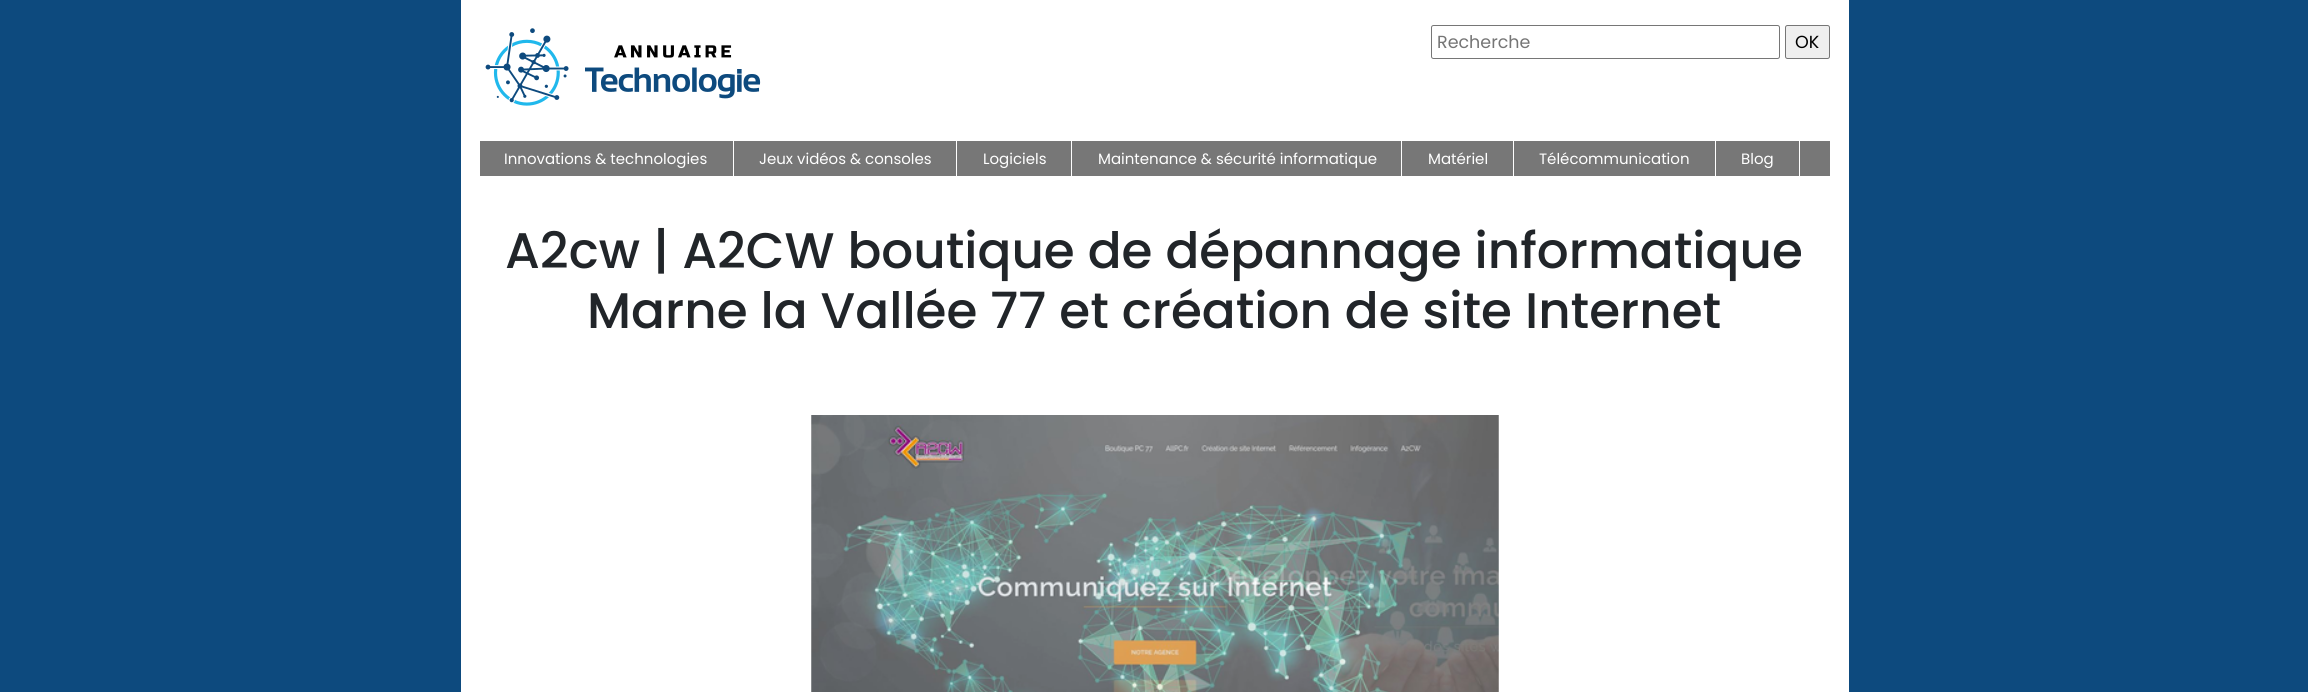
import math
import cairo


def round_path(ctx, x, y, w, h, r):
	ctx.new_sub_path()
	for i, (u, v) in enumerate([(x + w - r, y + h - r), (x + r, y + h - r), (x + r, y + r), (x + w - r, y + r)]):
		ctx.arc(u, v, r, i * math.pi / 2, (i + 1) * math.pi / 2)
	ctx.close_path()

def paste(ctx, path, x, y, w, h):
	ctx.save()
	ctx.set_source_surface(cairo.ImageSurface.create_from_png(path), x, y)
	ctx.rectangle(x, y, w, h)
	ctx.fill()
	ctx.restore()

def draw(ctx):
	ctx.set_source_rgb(0.051, 0.29, 0.494)
	ctx.paint()
	ctx.set_source_rgb(1, 1, 1)
	ctx.rectangle(461, 0, 1388, 692)
	ctx.fill()
	paste(ctx, 'media/1.png', 485, 28, 276, 78)
	round_path(ctx, 1431.5, 25.5, 348, 33, 2)
	ctx.set_source_rgb(0.463, 0.463, 0.463)
	ctx.set_line_width(1)
	ctx.stroke()
	ctx.select_font_face('Poppins')
	ctx.set_font_size(17.5)
	ctx.set_source_rgb(0.459, 0.459, 0.459)
	ctx.move_to(1437, 48)
	ctx.show_text('Recherche')
	ctx.set_source_rgb(0.937, 0.937, 0.937)
	round_path(ctx, 1785.5, 25.5, 44, 33, 2)
	ctx.fill_preserve()
	ctx.set_source_rgb(0.463, 0.463, 0.463)
	ctx.stroke()
	ctx.set_source_rgb(0, 0, 0)
	ctx.move_to(1795, 48)
	ctx.show_text('OK')
	ctx.set_source_rgb(0.467, 0.467, 0.467)
	ctx.rectangle(480, 141, 1350, 35)
	ctx.fill()
	ctx.set_source_rgb(1, 1, 1)
	ctx.rectangle(733, 141, 1, 35)
	ctx.fill()
	ctx.set_font_size(15)
	ctx.move_to(504, 164)
	ctx.show_text('Innovations & technologies')
	ctx.rectangle(956, 141, 1, 35)
	ctx.fill()
	ctx.move_to(759, 164)
	ctx.show_text('Jeux vidéos & consoles')
	ctx.rectangle(1071, 141, 1, 35)
	ctx.fill()
	ctx.move_to(983, 164)
	ctx.show_text('Logiciels')
	ctx.rectangle(1401, 141, 1, 35)
	ctx.fill()
	ctx.move_to(1098, 164)
	ctx.show_text('Maintenance & sécurité informatique')
	ctx.rectangle(1513, 141, 1, 35)
	ctx.fill()
	ctx.move_to(1428, 164)
	ctx.show_text('Matériel')
	ctx.rectangle(1715, 141, 1, 35)
	ctx.fill()
	ctx.move_to(1539, 164)
	ctx.show_text('Télécommunication')
	ctx.rectangle(1799, 141, 1, 35)
	ctx.fill()
	ctx.move_to(1741, 164)
	ctx.show_text('Blog')
	ctx.select_font_face('Poppins Medium')
	ctx.set_font_size(50)
	ctx.set_source_rgb(0.129, 0.145, 0.161)
	ctx.move_to(505, 268)
	ctx.show_text('A2cw | A2CW boutique de dépannage informatique')
	ctx.move_to(587, 328)
	ctx.show_text('Marne la Vallée 77 et création de site Internet')
	paste(ctx, 'media/2.png', 811, 415, 688, 277)


surface = cairo.ImageSurface(cairo.FORMAT_RGB24, 2308, 692)
ctx = cairo.Context(surface)
options = cairo.FontOptions()
options.set_hint_metrics(cairo.HINT_METRICS_OFF)
options.set_hint_style(cairo.HINT_STYLE_NONE)
ctx.set_font_options(options)
ctx.set_miter_limit(4)
draw(ctx)
surface.write_to_png('image.png')
